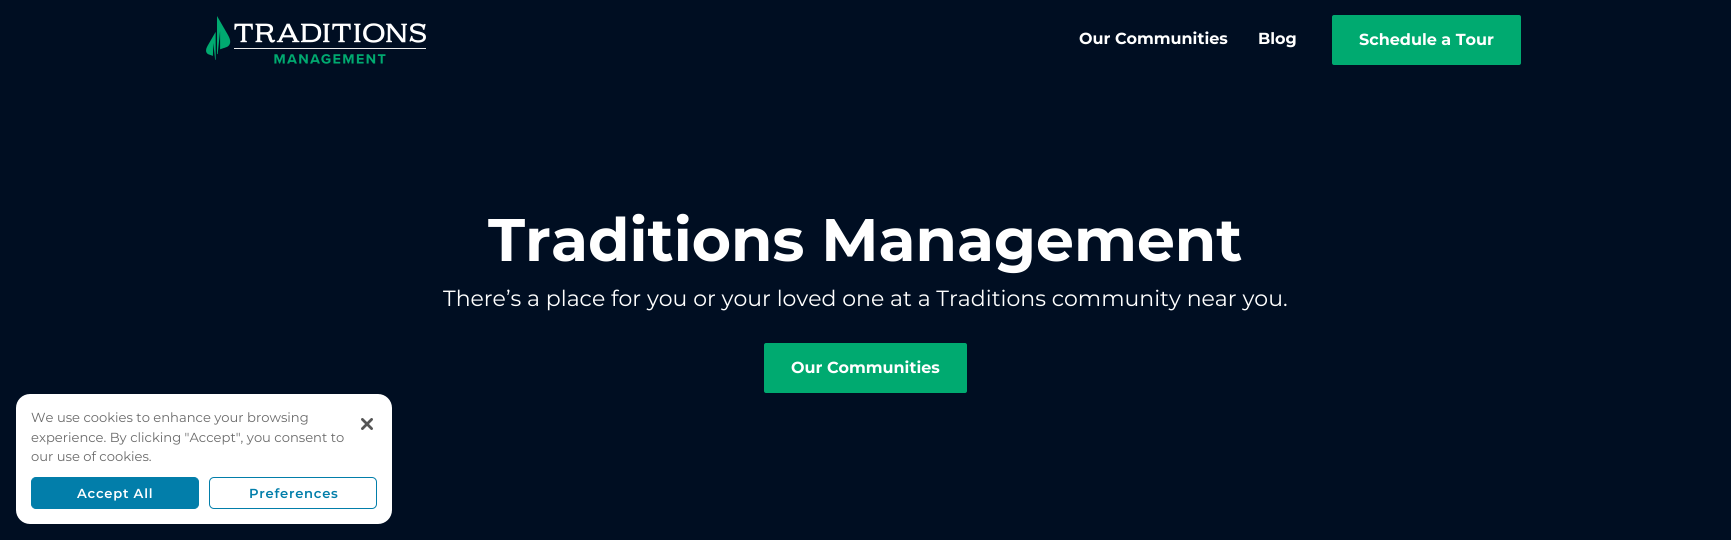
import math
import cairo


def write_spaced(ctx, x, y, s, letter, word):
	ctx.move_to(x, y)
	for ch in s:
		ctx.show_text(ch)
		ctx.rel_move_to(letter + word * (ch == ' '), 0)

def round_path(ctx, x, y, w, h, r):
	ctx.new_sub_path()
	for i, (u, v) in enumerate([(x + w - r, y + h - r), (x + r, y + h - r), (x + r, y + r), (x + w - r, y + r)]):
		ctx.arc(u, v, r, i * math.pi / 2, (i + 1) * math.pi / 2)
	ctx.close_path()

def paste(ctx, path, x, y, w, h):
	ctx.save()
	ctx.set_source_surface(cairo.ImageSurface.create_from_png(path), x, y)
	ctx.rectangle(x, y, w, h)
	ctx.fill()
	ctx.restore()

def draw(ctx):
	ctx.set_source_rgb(0, 0.055, 0.133)
	ctx.paint()
	paste(ctx, 'media/1.png', 206, 16, 220, 48)
	ctx.select_font_face('Montserrat', cairo.FONT_SLANT_NORMAL, cairo.FONT_WEIGHT_BOLD)
	ctx.set_font_size(16)
	ctx.set_source_rgb(1, 1, 1)
	ctx.move_to(1079, 44)
	ctx.show_text('Our Communities')
	ctx.move_to(1258, 44)
	ctx.show_text('Blog')
	ctx.set_source_rgb(0, 0.667, 0.439)
	round_path(ctx, 1333, 16, 187, 48, 1)
	ctx.fill_preserve()
	ctx.stroke()
	ctx.set_source_rgb(1, 1, 1)
	ctx.move_to(1359, 45)
	ctx.show_text('Schedule a Tour')
	ctx.set_font_size(60)
	ctx.move_to(488, 261)
	ctx.show_text('Traditions Management')
	ctx.select_font_face('Montserrat')
	ctx.set_font_size(22)
	ctx.move_to(443, 306)
	ctx.show_text('There’s a place for you or your loved one at a Traditions community near you.')
	ctx.set_source_rgb(0, 0.667, 0.439)
	round_path(ctx, 765, 344, 201, 48, 1)
	ctx.fill_preserve()
	ctx.stroke()
	ctx.select_font_face('Montserrat', cairo.FONT_SLANT_NORMAL, cairo.FONT_WEIGHT_BOLD)
	ctx.set_font_size(16)
	ctx.set_source_rgb(1, 1, 1)
	ctx.move_to(791, 373)
	ctx.show_text('Our Communities')
	round_path(ctx, 16, 394, 376, 130, 14)
	ctx.fill()
	ctx.select_font_face('Montserrat')
	ctx.set_font_size(13.1)
	ctx.set_source_rgb(0.412, 0.412, 0.412)
	for x, y, s in [
		(31, 422, 'We use cookies to enhance your browsing'),
		(31, 442, 'experience. By clicking "Accept", you consent to'),
		(31, 461, 'our use of cookies.'),
	]:
		ctx.move_to(x, y)
		ctx.show_text(s)
	paste(ctx, 'media/2.png', 361, 418, 12, 12)
	ctx.set_source_rgb(0.008, 0.494, 0.667)
	round_path(ctx, 31.5, 477.5, 167, 31, 4.5)
	ctx.fill_preserve()
	ctx.set_line_width(1)
	ctx.stroke()
	ctx.select_font_face('Montserrat SemiBold')
	ctx.set_source_rgb(1, 1, 1)
	write_spaced(ctx, 77, 498, 'Accept All', 0.75, 0)
	round_path(ctx, 209.5, 477.5, 167, 31, 4.5)
	ctx.set_source_rgb(0.008, 0.494, 0.667)
	ctx.stroke()
	write_spaced(ctx, 249, 498, 'Preferences', 0.75, 0)


surface = cairo.ImageSurface(cairo.FORMAT_RGB24, 1731, 540)
ctx = cairo.Context(surface)
options = cairo.FontOptions()
options.set_hint_metrics(cairo.HINT_METRICS_OFF)
options.set_hint_style(cairo.HINT_STYLE_NONE)
ctx.set_font_options(options)
ctx.set_miter_limit(4)
draw(ctx)
surface.write_to_png('image.png')
